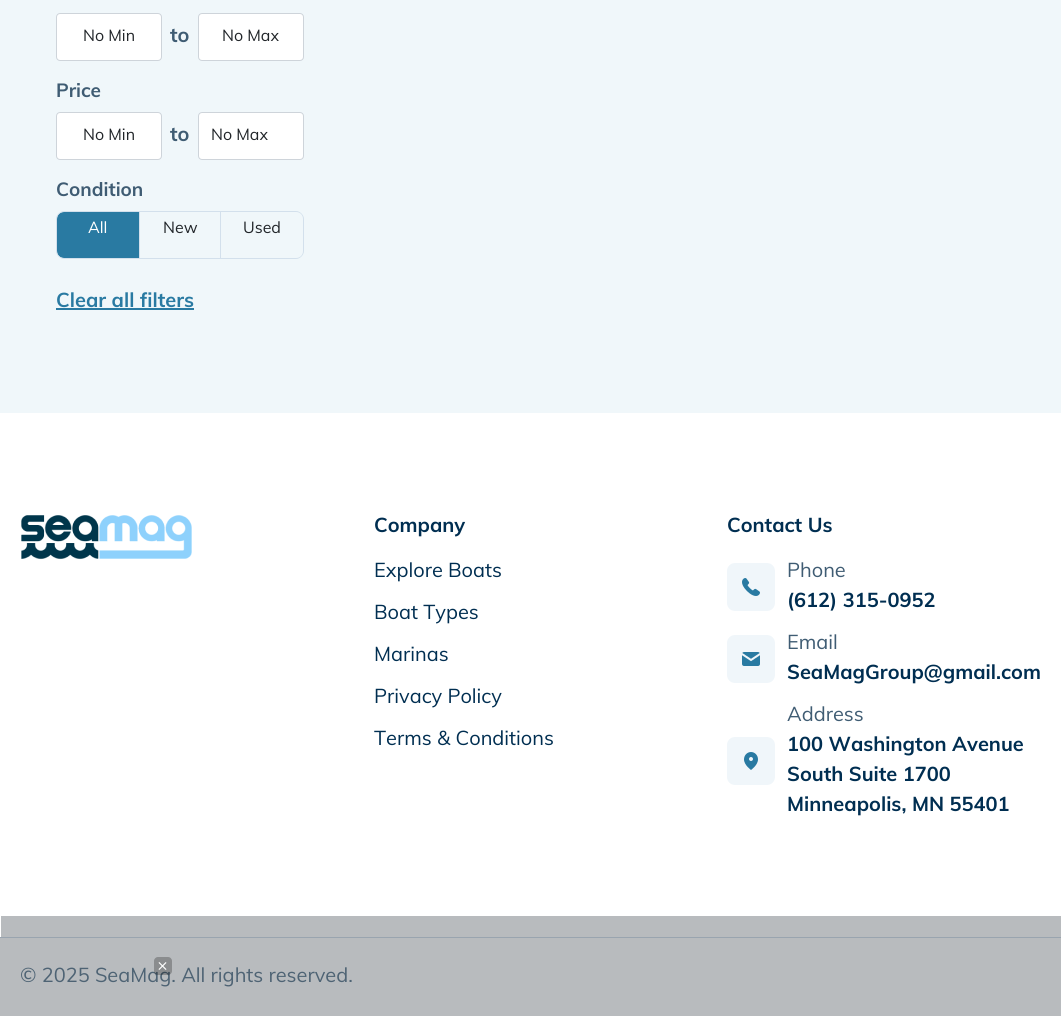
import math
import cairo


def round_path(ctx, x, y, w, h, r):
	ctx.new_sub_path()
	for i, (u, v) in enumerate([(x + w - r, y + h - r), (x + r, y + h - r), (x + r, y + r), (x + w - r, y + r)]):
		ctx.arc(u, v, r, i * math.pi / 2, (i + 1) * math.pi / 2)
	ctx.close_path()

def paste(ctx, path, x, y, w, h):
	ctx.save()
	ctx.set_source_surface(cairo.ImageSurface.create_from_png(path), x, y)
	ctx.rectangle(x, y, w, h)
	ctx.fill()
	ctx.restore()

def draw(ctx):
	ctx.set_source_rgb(0.941, 0.965, 0.98)
	ctx.paint()
	ctx.set_source_rgb(1, 1, 1)
	round_path(ctx, 56.5, 13.5, 105, 47, 3.5)
	ctx.fill_preserve()
	ctx.set_source_rgb(0.808, 0.831, 0.855)
	ctx.set_line_width(1)
	ctx.stroke()
	ctx.select_font_face('Muli')
	ctx.set_font_size(16)
	ctx.set_source_rgb(0.129, 0.145, 0.161)
	ctx.move_to(83, 41)
	ctx.show_text('No Min')
	ctx.select_font_face('Muli', cairo.FONT_SLANT_NORMAL, cairo.FONT_WEIGHT_BOLD)
	ctx.set_font_size(20)
	ctx.set_source_rgb(0.247, 0.361, 0.451)
	ctx.move_to(170, 42)
	ctx.show_text('to')
	ctx.set_source_rgb(1, 1, 1)
	round_path(ctx, 198.5, 13.5, 105, 47, 3.5)
	ctx.fill_preserve()
	ctx.set_source_rgb(0.808, 0.831, 0.855)
	ctx.stroke()
	ctx.select_font_face('Muli')
	ctx.set_font_size(16)
	ctx.set_source_rgb(0.129, 0.145, 0.161)
	ctx.move_to(222, 41)
	ctx.show_text('No Max')
	ctx.select_font_face('Muli', cairo.FONT_SLANT_NORMAL, cairo.FONT_WEIGHT_BOLD)
	ctx.set_font_size(19)
	ctx.set_source_rgb(0.247, 0.361, 0.451)
	ctx.move_to(56, 97)
	ctx.show_text('Price')
	ctx.set_source_rgb(1, 1, 1)
	round_path(ctx, 56.5, 112.5, 105, 47, 3.5)
	ctx.fill_preserve()
	ctx.set_source_rgb(0.808, 0.831, 0.855)
	ctx.stroke()
	ctx.select_font_face('Muli')
	ctx.set_font_size(16)
	ctx.set_source_rgb(0.129, 0.145, 0.161)
	ctx.move_to(83, 140)
	ctx.show_text('No Min')
	ctx.select_font_face('Muli', cairo.FONT_SLANT_NORMAL, cairo.FONT_WEIGHT_BOLD)
	ctx.set_font_size(20)
	ctx.set_source_rgb(0.247, 0.361, 0.451)
	ctx.move_to(170, 141)
	ctx.show_text('to')
	ctx.set_source_rgb(1, 1, 1)
	round_path(ctx, 198.5, 112.5, 105, 47, 3.5)
	ctx.fill_preserve()
	ctx.set_source_rgb(0.808, 0.831, 0.855)
	ctx.stroke()
	ctx.select_font_face('Muli')
	ctx.set_font_size(16)
	ctx.set_source_rgb(0.129, 0.145, 0.161)
	ctx.move_to(211, 140)
	ctx.show_text('No Max')
	ctx.select_font_face('Muli', cairo.FONT_SLANT_NORMAL, cairo.FONT_WEIGHT_BOLD)
	ctx.set_font_size(19)
	ctx.set_source_rgb(0.247, 0.361, 0.451)
	ctx.move_to(56, 196)
	ctx.show_text('Condition')
	ctx.set_source_rgb(0.161, 0.478, 0.635)
	ctx.new_path()
	ctx.move_to(64, 212)
	ctx.line_to(139, 212)
	ctx.line_to(139, 258)
	ctx.line_to(64, 258)
	ctx.curve_to(60, 258, 57, 255, 57, 251)
	ctx.line_to(57, 219)
	ctx.curve_to(57, 215, 60, 212, 64, 212)
	ctx.close_path()
	ctx.fill()
	ctx.set_source_rgb(0.827, 0.878, 0.922)
	ctx.set_fill_rule(cairo.FILL_RULE_EVEN_ODD)
	ctx.new_path()
	ctx.move_to(64, 211)
	ctx.line_to(139, 211)
	ctx.line_to(139, 259)
	ctx.line_to(64, 259)
	ctx.curve_to(60, 259, 56, 255, 56, 251)
	ctx.line_to(56, 219)
	ctx.curve_to(56, 215, 60, 211, 64, 211)
	ctx.close_path()
	ctx.move_to(64, 212)
	ctx.line_to(139, 212)
	ctx.line_to(139, 258)
	ctx.line_to(64, 258)
	ctx.curve_to(60, 258, 57, 255, 57, 251)
	ctx.line_to(57, 219)
	ctx.curve_to(57, 215, 60, 212, 64, 212)
	ctx.close_path()
	ctx.fill()
	ctx.select_font_face('Muli')
	ctx.set_font_size(16)
	ctx.set_source_rgb(1, 1, 1)
	ctx.move_to(88, 233)
	ctx.show_text('All')
	ctx.rectangle(139.5, 211.5, 81, 47)
	ctx.set_source_rgb(0.827, 0.878, 0.922)
	ctx.stroke()
	ctx.set_source_rgb(0.129, 0.145, 0.161)
	ctx.move_to(163, 233)
	ctx.show_text('New')
	ctx.set_source_rgb(0.827, 0.878, 0.922)
	ctx.new_path()
	ctx.move_to(221, 211)
	ctx.line_to(296, 211)
	ctx.curve_to(300, 211, 304, 215, 304, 219)
	ctx.line_to(304, 251)
	ctx.curve_to(304, 255, 300, 259, 296, 259)
	ctx.line_to(221, 259)
	ctx.close_path()
	ctx.move_to(221, 212)
	ctx.line_to(296, 212)
	ctx.curve_to(300, 212, 303, 215, 303, 219)
	ctx.line_to(303, 251)
	ctx.curve_to(303, 255, 300, 258, 296, 258)
	ctx.line_to(221, 258)
	ctx.close_path()
	ctx.fill()
	ctx.set_source_rgb(0.129, 0.145, 0.161)
	ctx.move_to(243, 233)
	ctx.show_text('Used')
	ctx.select_font_face('Muli', cairo.FONT_SLANT_NORMAL, cairo.FONT_WEIGHT_BOLD)
	ctx.set_font_size(20)
	ctx.set_source_rgb(0.161, 0.478, 0.635)
	ctx.move_to(56, 307)
	ctx.show_text('Clear all filters')
	ctx.rectangle(56, 308, 138, 2)
	ctx.fill()
	ctx.set_source_rgb(1, 1, 1)
	ctx.rectangle(0, 413, 1061, 524)
	ctx.fill()
	ctx.set_source_rgb(0.722, 0.733, 0.745)
	ctx.rectangle(1, 916, 1060, 21)
	ctx.fill()
	paste(ctx, 'media/1.png', 21, 515, 171, 45)
	ctx.set_source_rgb(0, 0.18, 0.318)
	ctx.move_to(374, 532)
	ctx.show_text('Company')
	ctx.select_font_face('Muli')
	for x, y, s in [
		(374, 577, 'Explore Boats'),
		(374, 619, 'Boat Types'),
		(374, 661, 'Marinas'),
		(374, 703, 'Privacy Policy'),
		(374, 745, 'Terms & Conditions'),
	]:
		ctx.move_to(x, y)
		ctx.show_text(s)
	ctx.select_font_face('Muli', cairo.FONT_SLANT_NORMAL, cairo.FONT_WEIGHT_BOLD)
	ctx.move_to(727, 532)
	ctx.show_text('Contact Us')
	paste(ctx, 'media/2.png', 727, 563, 48, 48)
	ctx.select_font_face('Muli')
	ctx.set_source_rgb(0.247, 0.361, 0.451)
	ctx.move_to(787, 577)
	ctx.show_text('Phone')
	ctx.select_font_face('Muli', cairo.FONT_SLANT_NORMAL, cairo.FONT_WEIGHT_BOLD)
	ctx.set_source_rgb(0, 0.18, 0.318)
	ctx.move_to(787, 607)
	ctx.show_text('(612) 315-0952')
	paste(ctx, 'media/3.png', 727, 635, 48, 48)
	ctx.select_font_face('Muli')
	ctx.set_source_rgb(0.247, 0.361, 0.451)
	ctx.move_to(787, 649)
	ctx.show_text('Email')
	ctx.select_font_face('Muli', cairo.FONT_SLANT_NORMAL, cairo.FONT_WEIGHT_BOLD)
	ctx.set_source_rgb(0, 0.18, 0.318)
	ctx.move_to(787, 679)
	ctx.show_text('SeaMagGroup@gmail.com')
	paste(ctx, 'media/4.png', 727, 737, 48, 48)
	ctx.select_font_face('Muli')
	ctx.set_source_rgb(0.247, 0.361, 0.451)
	ctx.move_to(787, 721)
	ctx.show_text('Address')
	ctx.select_font_face('Muli', cairo.FONT_SLANT_NORMAL, cairo.FONT_WEIGHT_BOLD)
	ctx.set_source_rgb(0, 0.18, 0.318)
	for x, y, s in [
		(787, 751, '100 Washington Avenue'),
		(787, 781, 'South Suite 1700'),
		(787, 811, 'Minneapolis, MN 55401'),
	]:
		ctx.move_to(x, y)
		ctx.show_text(s)
	ctx.set_source_rgb(0.722, 0.733, 0.745)
	ctx.rectangle(0, 938, 1061, 78)
	ctx.fill()
	ctx.select_font_face('Muli')
	ctx.set_source_rgb(0.306, 0.388, 0.455)
	ctx.move_to(20, 982)
	ctx.show_text('© 2025 SeaMag. All rights reserved.')
	ctx.set_source_rgba(0, 0, 0, 0.25)
	round_path(ctx, 154, 957, 18, 18, 4)
	ctx.fill()
	paste(ctx, 'media/5.png', 158, 962, 9, 8)
	ctx.set_source_rgb(0.6, 0.643, 0.686)
	ctx.rectangle(0, 937, 1061, 1)
	ctx.fill()


surface = cairo.ImageSurface(cairo.FORMAT_RGB24, 1061, 1016)
ctx = cairo.Context(surface)
options = cairo.FontOptions()
options.set_hint_metrics(cairo.HINT_METRICS_OFF)
options.set_hint_style(cairo.HINT_STYLE_NONE)
ctx.set_font_options(options)
ctx.set_miter_limit(4)
draw(ctx)
surface.write_to_png('image.png')
